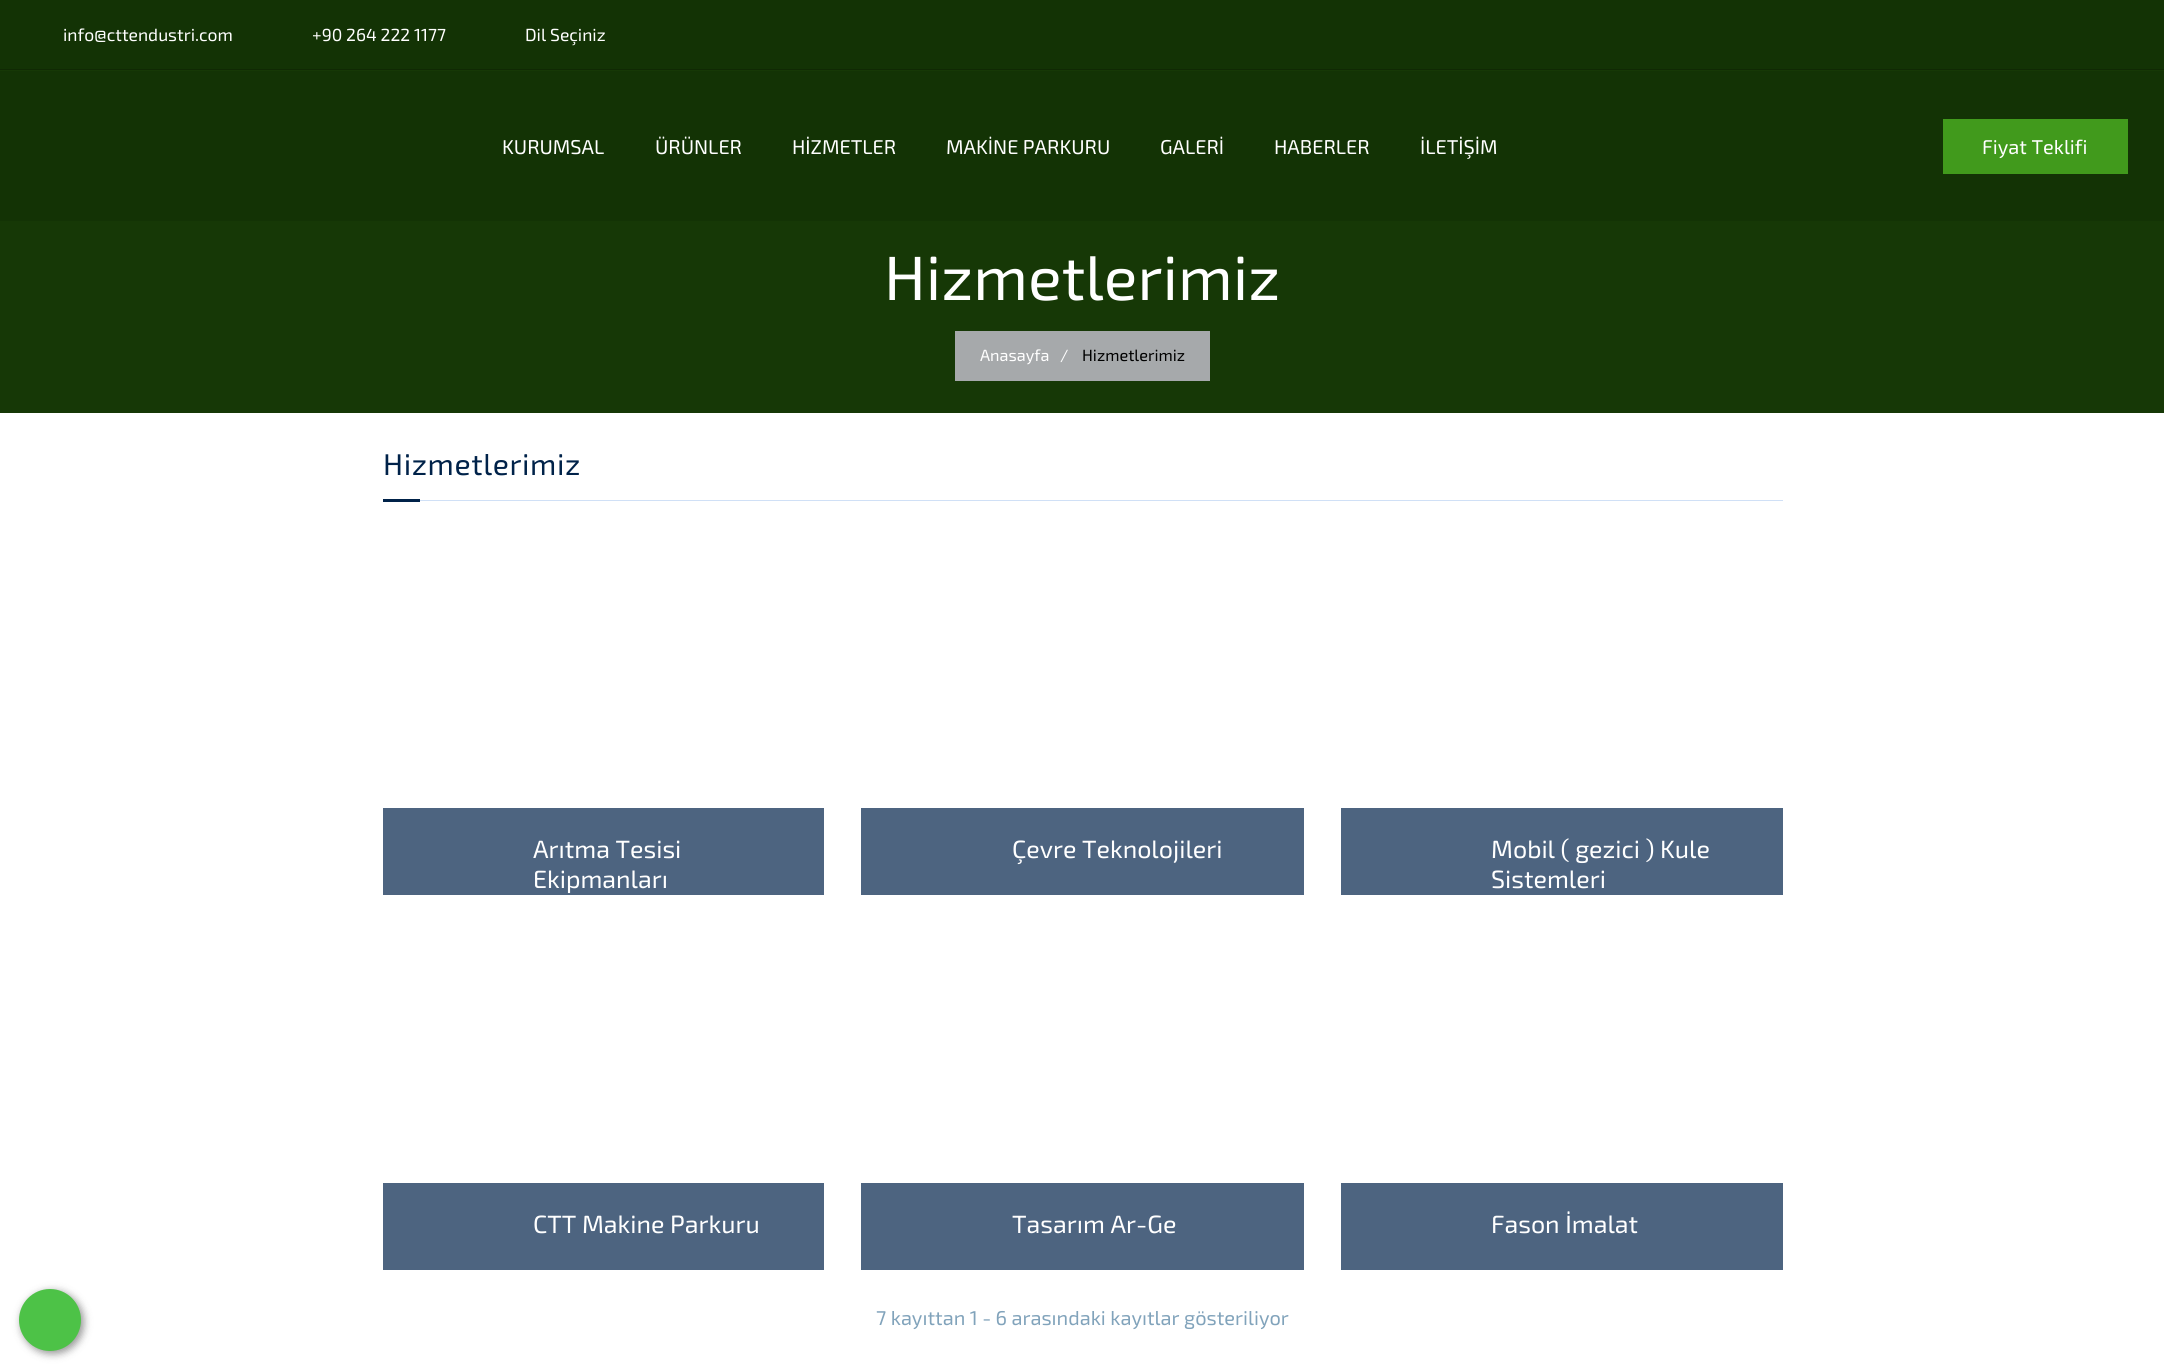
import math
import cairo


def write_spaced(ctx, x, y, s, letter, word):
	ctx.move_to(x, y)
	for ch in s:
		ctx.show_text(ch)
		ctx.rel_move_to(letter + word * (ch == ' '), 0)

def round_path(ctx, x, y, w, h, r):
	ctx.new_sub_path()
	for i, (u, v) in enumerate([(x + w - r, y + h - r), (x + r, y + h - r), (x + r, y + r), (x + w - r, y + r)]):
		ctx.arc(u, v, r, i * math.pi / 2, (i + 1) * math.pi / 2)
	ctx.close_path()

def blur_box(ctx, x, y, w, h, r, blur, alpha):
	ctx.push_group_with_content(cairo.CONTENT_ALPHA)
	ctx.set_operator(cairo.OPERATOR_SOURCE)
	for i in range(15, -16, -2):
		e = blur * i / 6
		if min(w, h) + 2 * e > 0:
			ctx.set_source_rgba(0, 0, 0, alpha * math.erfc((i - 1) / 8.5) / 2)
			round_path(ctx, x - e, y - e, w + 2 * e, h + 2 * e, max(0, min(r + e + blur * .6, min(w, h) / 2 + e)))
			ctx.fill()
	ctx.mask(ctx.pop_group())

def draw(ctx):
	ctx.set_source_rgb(1, 1, 1)
	ctx.paint()
	ctx.set_source_rgb(0.078, 0.2, 0.02)
	ctx.rectangle(0, 0, 2164, 69)
	ctx.fill()
	ctx.set_source_rgb(0.063, 0.161, 0.016)
	ctx.rectangle(0, 69, 2164, 1)
	ctx.fill()
	ctx.select_font_face('Exo 2')
	ctx.set_font_size(17.5)
	ctx.set_source_rgb(1, 1, 1)
	for x, y, s in [
		(63, 41, 'info@cttendustri.com'),
		(312, 41, '+90 264 222 1177'),
		(525, 41, 'Dil Seçiniz'),
	]:
		ctx.move_to(x, y)
		ctx.show_text(s)
	ctx.set_source_rgb(0.086, 0.22, 0.024)
	ctx.rectangle(0, 70, 2164, 343)
	ctx.fill()
	ctx.set_source_rgb(0.078, 0.2, 0.02)
	ctx.rectangle(0, 71, 2164, 150)
	ctx.fill()
	ctx.set_font_size(20)
	ctx.set_source_rgb(1, 1, 1)
	for x, y, s in [
		(502, 154, 'KURUMSAL'),
		(655, 154, 'ÜRÜNLER'),
		(792, 154, 'HİZMETLER'),
		(946, 154, 'MAKİNE PARKURU'),
		(1160, 154, 'GALERİ'),
		(1274, 154, 'HABERLER'),
		(1420, 154, 'İLETİŞİM'),
	]:
		ctx.move_to(x, y)
		ctx.show_text(s)
	ctx.set_source_rgb(0.255, 0.604, 0.11)
	ctx.rectangle(1943, 119, 185, 55)
	ctx.fill()
	ctx.set_source_rgb(1, 1, 1)
	ctx.move_to(1982, 154)
	ctx.show_text('Fiyat Teklifi')
	ctx.set_font_size(62.5)
	ctx.move_to(884, 300)
	ctx.show_text('Hizmetlerimiz')
	ctx.set_source_rgb(0.651, 0.663, 0.671)
	ctx.rectangle(955, 331, 255, 50)
	ctx.fill()
	ctx.set_font_size(16.25)
	ctx.set_source_rgb(1, 1, 1)
	ctx.move_to(980, 361)
	ctx.show_text('Anasayfa')
	ctx.move_to(1060, 361)
	ctx.show_text('/')
	ctx.set_source_rgb(0, 0, 0)
	ctx.move_to(1082, 361)
	ctx.show_text('Hizmetlerimiz')
	ctx.set_source_rgb(0, 0, 0)
	blur_box(ctx, 21, 1291, 63, 63, 31.5, 4, 0.4)
	ctx.set_source_rgb(0.302, 0.761, 0.278)
	ctx.arc(50, 1320, 31, 0, 2 * math.pi)
	ctx.fill()
	ctx.set_font_size(30)
	ctx.set_source_rgb(0, 0.133, 0.286)
	write_spaced(ctx, 383, 475, 'Hizmetlerimiz', 0.6, 0)
	ctx.rectangle(383, 499, 37, 3)
	ctx.fill()
	ctx.set_source_rgb(0.816, 0.878, 0.961)
	ctx.rectangle(420, 500, 1363, 1)
	ctx.fill()
	ctx.set_source_rgb(0.302, 0.392, 0.502)
	ctx.rectangle(383, 808, 441, 87)
	ctx.fill()
	ctx.set_font_size(25)
	ctx.set_source_rgb(1, 1, 1)
	ctx.move_to(533, 858)
	ctx.show_text('Arıtma Tesisi')
	ctx.move_to(533, 888)
	ctx.show_text('Ekipmanları')
	ctx.set_source_rgb(0.302, 0.392, 0.502)
	ctx.rectangle(861, 808, 443, 87)
	ctx.fill()
	ctx.set_source_rgb(1, 1, 1)
	ctx.move_to(1012, 858)
	ctx.show_text('Çevre Teknolojileri')
	ctx.set_source_rgb(0.302, 0.392, 0.502)
	ctx.rectangle(1341, 808, 442, 87)
	ctx.fill()
	ctx.set_source_rgb(1, 1, 1)
	ctx.move_to(1491, 858)
	ctx.show_text('Mobil ( gezici ) Kule')
	ctx.move_to(1491, 888)
	ctx.show_text('Sistemleri')
	ctx.set_source_rgb(0.302, 0.392, 0.502)
	ctx.rectangle(383, 1183, 441, 87)
	ctx.fill()
	ctx.set_source_rgb(1, 1, 1)
	ctx.move_to(533, 1233)
	ctx.show_text('CTT Makine Parkuru')
	ctx.set_source_rgb(0.302, 0.392, 0.502)
	ctx.rectangle(861, 1183, 443, 87)
	ctx.fill()
	ctx.set_source_rgb(1, 1, 1)
	ctx.move_to(1012, 1233)
	ctx.show_text('Tasarım Ar-Ge')
	ctx.set_source_rgb(0.302, 0.392, 0.502)
	ctx.rectangle(1341, 1183, 442, 87)
	ctx.fill()
	ctx.set_source_rgb(1, 1, 1)
	ctx.move_to(1491, 1233)
	ctx.show_text('Fason İmalat')
	ctx.set_font_size(20)
	ctx.set_source_rgb(0.506, 0.639, 0.733)
	ctx.move_to(876, 1325)
	ctx.show_text('7 kayıttan 1 - 6 arasındaki kayıtlar gösteriliyor')


surface = cairo.ImageSurface(cairo.FORMAT_RGB24, 2164, 1369)
ctx = cairo.Context(surface)
options = cairo.FontOptions()
options.set_hint_metrics(cairo.HINT_METRICS_OFF)
options.set_hint_style(cairo.HINT_STYLE_NONE)
ctx.set_font_options(options)
ctx.set_miter_limit(4)
draw(ctx)
surface.write_to_png('image.png')
